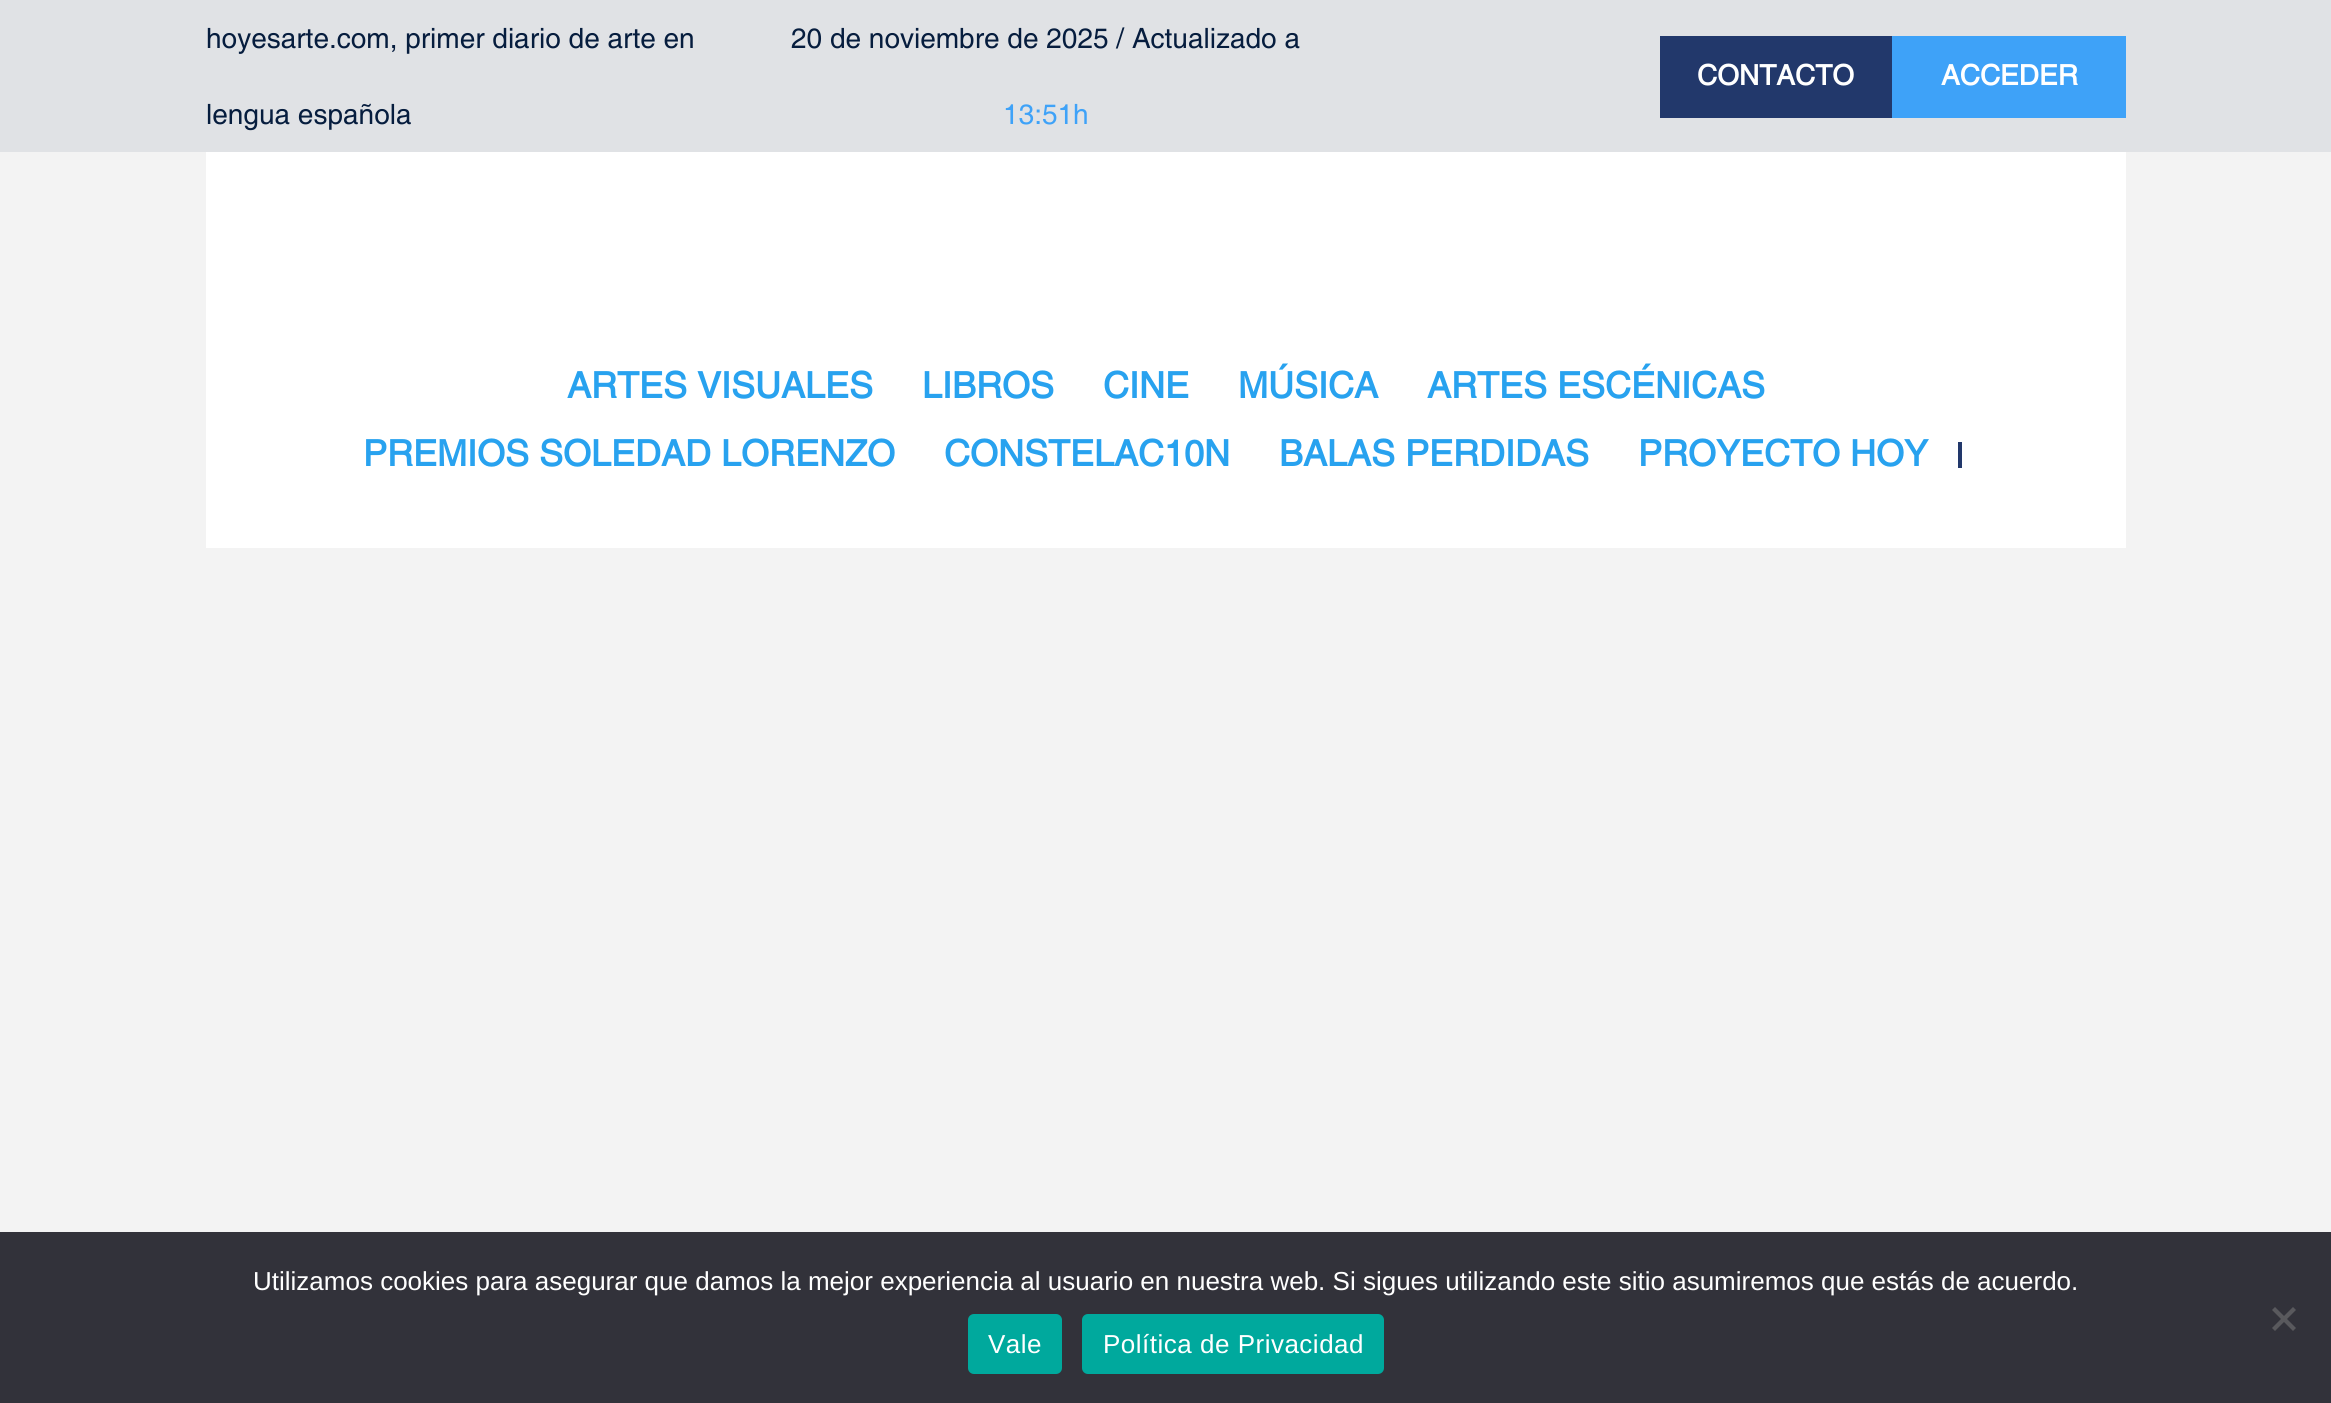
import math
import cairo


def write_spaced(ctx, x, y, s, letter, word):
	ctx.move_to(x, y)
	for ch in s:
		ctx.show_text(ch)
		ctx.rel_move_to(letter + word * (ch == ' '), 0)

def round_path(ctx, x, y, w, h, r):
	ctx.new_sub_path()
	for i, (u, v) in enumerate([(x + w - r, y + h - r), (x + r, y + h - r), (x + r, y + r), (x + w - r, y + r)]):
		ctx.arc(u, v, r, i * math.pi / 2, (i + 1) * math.pi / 2)
	ctx.close_path()

def draw(ctx):
	ctx.set_source_rgb(0.953, 0.953, 0.953)
	ctx.paint()
	ctx.set_source_rgb(0.878, 0.886, 0.898)
	ctx.rectangle(0, 0, 2331, 152)
	ctx.fill()
	ctx.select_font_face('Helvetica')
	ctx.set_font_size(28)
	ctx.set_source_rgb(0.024, 0.114, 0.243)
	for x, y, s in [
		(206, 48, 'hoyesarte.com, primer diario de arte en'),
		(206, 124, 'lengua española'),
		(791, 48, '20 de noviembre de 2025 / Actualizado a'),
	]:
		ctx.move_to(x, y)
		ctx.show_text(s)
	ctx.set_source_rgb(0.243, 0.635, 0.969)
	ctx.move_to(1003, 124)
	ctx.show_text('13:51h')
	ctx.set_source_rgb(0.133, 0.22, 0.42)
	ctx.rectangle(1660, 36, 232, 82)
	ctx.fill()
	ctx.select_font_face('Helvetica', cairo.FONT_SLANT_NORMAL, cairo.FONT_WEIGHT_BOLD)
	ctx.set_source_rgb(1, 1, 1)
	ctx.move_to(1697, 85)
	ctx.show_text('CONTACTO')
	ctx.set_source_rgb(0.243, 0.635, 0.969)
	ctx.rectangle(1892, 36, 234, 82)
	ctx.fill()
	ctx.set_source_rgb(1, 1, 1)
	ctx.move_to(1941, 85)
	ctx.show_text('ACCEDER')
	ctx.rectangle(206, 152, 1920, 396)
	ctx.fill()
	ctx.set_font_size(36)
	ctx.set_source_rgb(0.157, 0.635, 0.937)
	for x, y, s in [
		(567, 398, 'ARTES VISUALES'),
		(922, 398, 'LIBROS'),
		(1103, 398, 'CINE'),
		(1238, 398, 'MÚSICA'),
		(1427, 398, 'ARTES ESCÉNICAS'),
		(363, 466, 'PREMIOS SOLEDAD LORENZO'),
		(944, 466, 'CONSTELAC10N'),
		(1279, 466, 'BALAS PERDIDAS'),
		(1638, 466, 'PROYECTO HOY'),
	]:
		ctx.move_to(x, y)
		ctx.show_text(s)
	ctx.set_source_rgb(0.133, 0.22, 0.42)
	ctx.rectangle(1958, 442, 4, 26)
	ctx.fill()
	ctx.set_source_rgb(0.196, 0.196, 0.227)
	ctx.rectangle(0, 1232, 2331, 171)
	ctx.fill()
	ctx.select_font_face('Liberation Sans')
	ctx.set_font_size(26)
	ctx.set_source_rgb(1, 1, 1)
	ctx.move_to(253, 1290)
	ctx.show_text('Utilizamos cookies para asegurar que damos la mejor experiencia al usuario en nuestra web. Si sigues utilizando este sitio asumiremos que estás de acuerdo.')
	ctx.set_source_rgb(0.349, 0.349, 0.365)
	ctx.new_path()
	ctx.move_to(2293, 1307)
	ctx.line_to(2296, 1310)
	ctx.line_to(2275, 1331)
	ctx.line_to(2272, 1328)
	ctx.close_path()
	ctx.fill()
	ctx.new_path()
	ctx.move_to(2272, 1310)
	ctx.line_to(2275, 1307)
	ctx.line_to(2296, 1328)
	ctx.line_to(2293, 1331)
	ctx.close_path()
	ctx.fill()
	ctx.set_source_rgb(0, 0.663, 0.616)
	round_path(ctx, 968, 1314, 94, 60, 6)
	ctx.fill()
	ctx.set_source_rgb(1, 1, 1)
	write_spaced(ctx, 988, 1353, 'Vale', 0.5, 0)
	ctx.set_source_rgb(0, 0.663, 0.616)
	round_path(ctx, 1082, 1314, 302, 60, 6)
	ctx.fill()
	ctx.set_source_rgb(1, 1, 1)
	write_spaced(ctx, 1103, 1353, 'Política de Privacidad', 0.5, 0)


surface = cairo.ImageSurface(cairo.FORMAT_RGB24, 2331, 1403)
ctx = cairo.Context(surface)
options = cairo.FontOptions()
options.set_hint_metrics(cairo.HINT_METRICS_OFF)
options.set_hint_style(cairo.HINT_STYLE_NONE)
ctx.set_font_options(options)
ctx.set_miter_limit(4)
draw(ctx)
surface.write_to_png('image.png')
